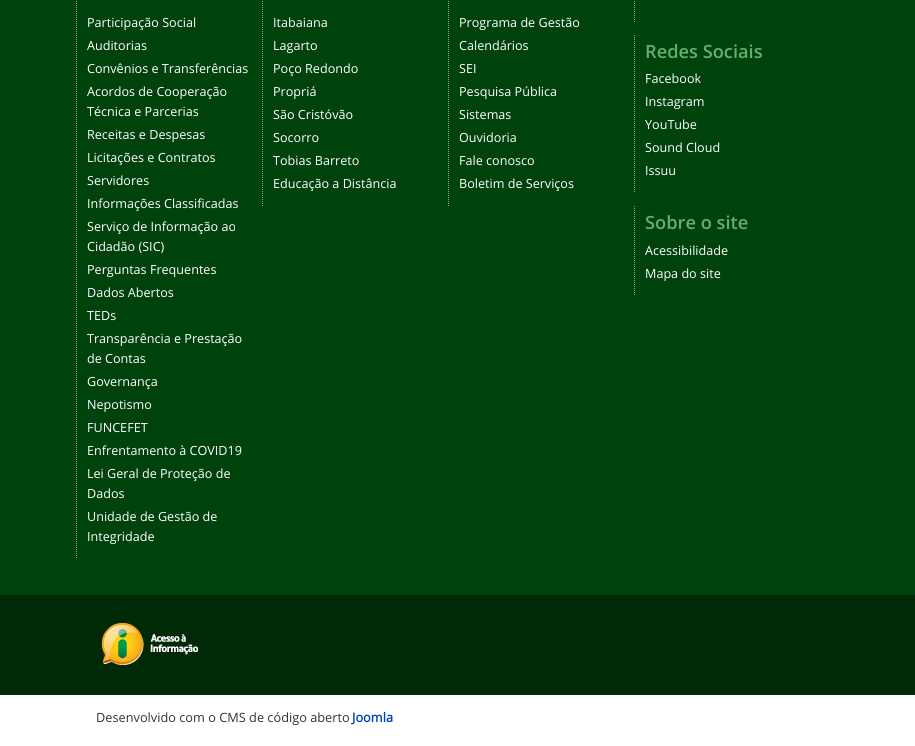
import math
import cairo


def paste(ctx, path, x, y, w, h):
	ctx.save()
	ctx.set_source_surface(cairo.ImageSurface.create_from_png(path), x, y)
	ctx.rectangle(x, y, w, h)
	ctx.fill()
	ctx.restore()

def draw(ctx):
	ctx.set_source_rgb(0, 0.259, 0.047)
	ctx.paint()
	ctx.new_path()
	ctx.move_to(634.5, -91)
	ctx.line_to(634.5, 22)
	ctx.set_source_rgb(0.502, 0.659, 0.529)
	ctx.set_line_width(1)
	ctx.set_dash([1, 1])
	ctx.stroke()
	ctx.new_path()
	ctx.move_to(76.5, -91)
	ctx.line_to(76.5, 559)
	ctx.stroke()
	ctx.select_font_face('Open Sans')
	ctx.set_font_size(12.6)
	ctx.set_source_rgb(1, 1, 1)
	for x, y, s in [
		(87, 27, 'Participação Social'),
		(87, 50, 'Auditorias'),
		(87, 73, 'Convênios e Transferências'),
		(87, 96, 'Acordos de Cooperação'),
		(87, 116, 'Técnica e Parcerias'),
		(87, 139, 'Receitas e Despesas'),
		(87, 162, 'Licitações e Contratos'),
		(87, 185, 'Servidores'),
		(87, 208, 'Informações Classificadas'),
		(87, 231, 'Serviço de Informação ao'),
		(87, 251, 'Cidadão (SIC)'),
		(87, 274, 'Perguntas Frequentes'),
		(87, 297, 'Dados Abertos'),
		(87, 320, 'TEDs'),
		(87, 343, 'Transparência e Prestação'),
		(87, 363, 'de Contas'),
		(87, 386, 'Governança'),
		(87, 409, 'Nepotismo'),
		(87, 432, 'FUNCEFET'),
		(87, 455, 'Enfrentamento à COVID19'),
		(87, 478, 'Lei Geral de Proteção de'),
		(87, 498, 'Dados'),
		(87, 521, 'Unidade de Gestão de'),
		(87, 541, 'Integridade'),
	]:
		ctx.move_to(x, y)
		ctx.show_text(s)
	ctx.new_path()
	ctx.move_to(262.5, -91)
	ctx.line_to(262.5, 206)
	ctx.set_source_rgb(0.502, 0.659, 0.529)
	ctx.stroke()
	ctx.set_source_rgb(1, 1, 1)
	for x, y, s in [
		(273, 27, 'Itabaiana'),
		(273, 50, 'Lagarto'),
		(273, 73, 'Poço Redondo'),
		(273, 96, 'Propriá'),
		(273, 119, 'São Cristóvão'),
		(273, 142, 'Socorro'),
		(273, 165, 'Tobias Barreto'),
		(273, 188, 'Educação a Distância'),
	]:
		ctx.move_to(x, y)
		ctx.show_text(s)
	ctx.new_path()
	ctx.move_to(448.5, -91)
	ctx.line_to(448.5, 206)
	ctx.set_source_rgb(0.502, 0.659, 0.529)
	ctx.stroke()
	ctx.set_source_rgb(1, 1, 1)
	for x, y, s in [
		(459, 27, 'Programa de Gestão'),
		(459, 50, 'Calendários'),
		(459, 73, 'SEI'),
		(459, 96, 'Pesquisa Pública'),
		(459, 119, 'Sistemas'),
		(459, 142, 'Ouvidoria'),
		(459, 165, 'Fale conosco'),
		(459, 188, 'Boletim de Serviços'),
	]:
		ctx.move_to(x, y)
		ctx.show_text(s)
	ctx.new_path()
	ctx.move_to(634.5, 35)
	ctx.line_to(634.5, 193)
	ctx.set_source_rgb(0.502, 0.659, 0.529)
	ctx.stroke()
	ctx.select_font_face('Open Sans SemiBold')
	ctx.set_font_size(18.25)
	ctx.set_source_rgb(0.38, 0.69, 0.435)
	ctx.move_to(645, 58)
	ctx.show_text('Redes Sociais')
	ctx.select_font_face('Open Sans')
	ctx.set_font_size(12.6)
	ctx.set_source_rgb(1, 1, 1)
	for x, y, s in [
		(645, 83, 'Facebook'),
		(645, 106, 'Instagram'),
		(645, 129, 'YouTube'),
		(645, 152, 'Sound Cloud'),
		(645, 175, 'Issuu'),
	]:
		ctx.move_to(x, y)
		ctx.show_text(s)
	ctx.new_path()
	ctx.move_to(634.5, 206)
	ctx.line_to(634.5, 296)
	ctx.set_source_rgb(0.502, 0.659, 0.529)
	ctx.stroke()
	ctx.select_font_face('Open Sans SemiBold')
	ctx.set_font_size(18.25)
	ctx.set_source_rgb(0.38, 0.69, 0.435)
	ctx.move_to(645, 229)
	ctx.show_text('Sobre o site')
	ctx.select_font_face('Open Sans')
	ctx.set_font_size(12.6)
	ctx.set_source_rgb(1, 1, 1)
	ctx.move_to(645, 255)
	ctx.show_text('Acessibilidade')
	ctx.move_to(645, 278)
	ctx.show_text('Mapa do site')
	ctx.set_source_rgb(0, 0.161, 0.027)
	ctx.rectangle(0, 595, 915, 100)
	ctx.fill()
	paste(ctx, 'media/1.png', 102, 623, 96, 42)
	ctx.set_source_rgb(1, 1, 1)
	ctx.rectangle(0, 695, 915, 51)
	ctx.fill()
	ctx.set_font_size(12.75)
	ctx.set_source_rgb(0.2, 0.2, 0.2)
	ctx.move_to(96, 722)
	ctx.show_text('Desenvolvido com o CMS de código aberto')
	ctx.select_font_face('Open Sans', cairo.FONT_SLANT_NORMAL, cairo.FONT_WEIGHT_BOLD)
	ctx.set_source_rgb(0, 0.255, 0.698)
	ctx.move_to(352, 722)
	ctx.show_text('Joomla')


surface = cairo.ImageSurface(cairo.FORMAT_RGB24, 915, 746)
ctx = cairo.Context(surface)
options = cairo.FontOptions()
options.set_hint_metrics(cairo.HINT_METRICS_OFF)
options.set_hint_style(cairo.HINT_STYLE_NONE)
ctx.set_font_options(options)
ctx.set_miter_limit(4)
draw(ctx)
surface.write_to_png('image.png')
